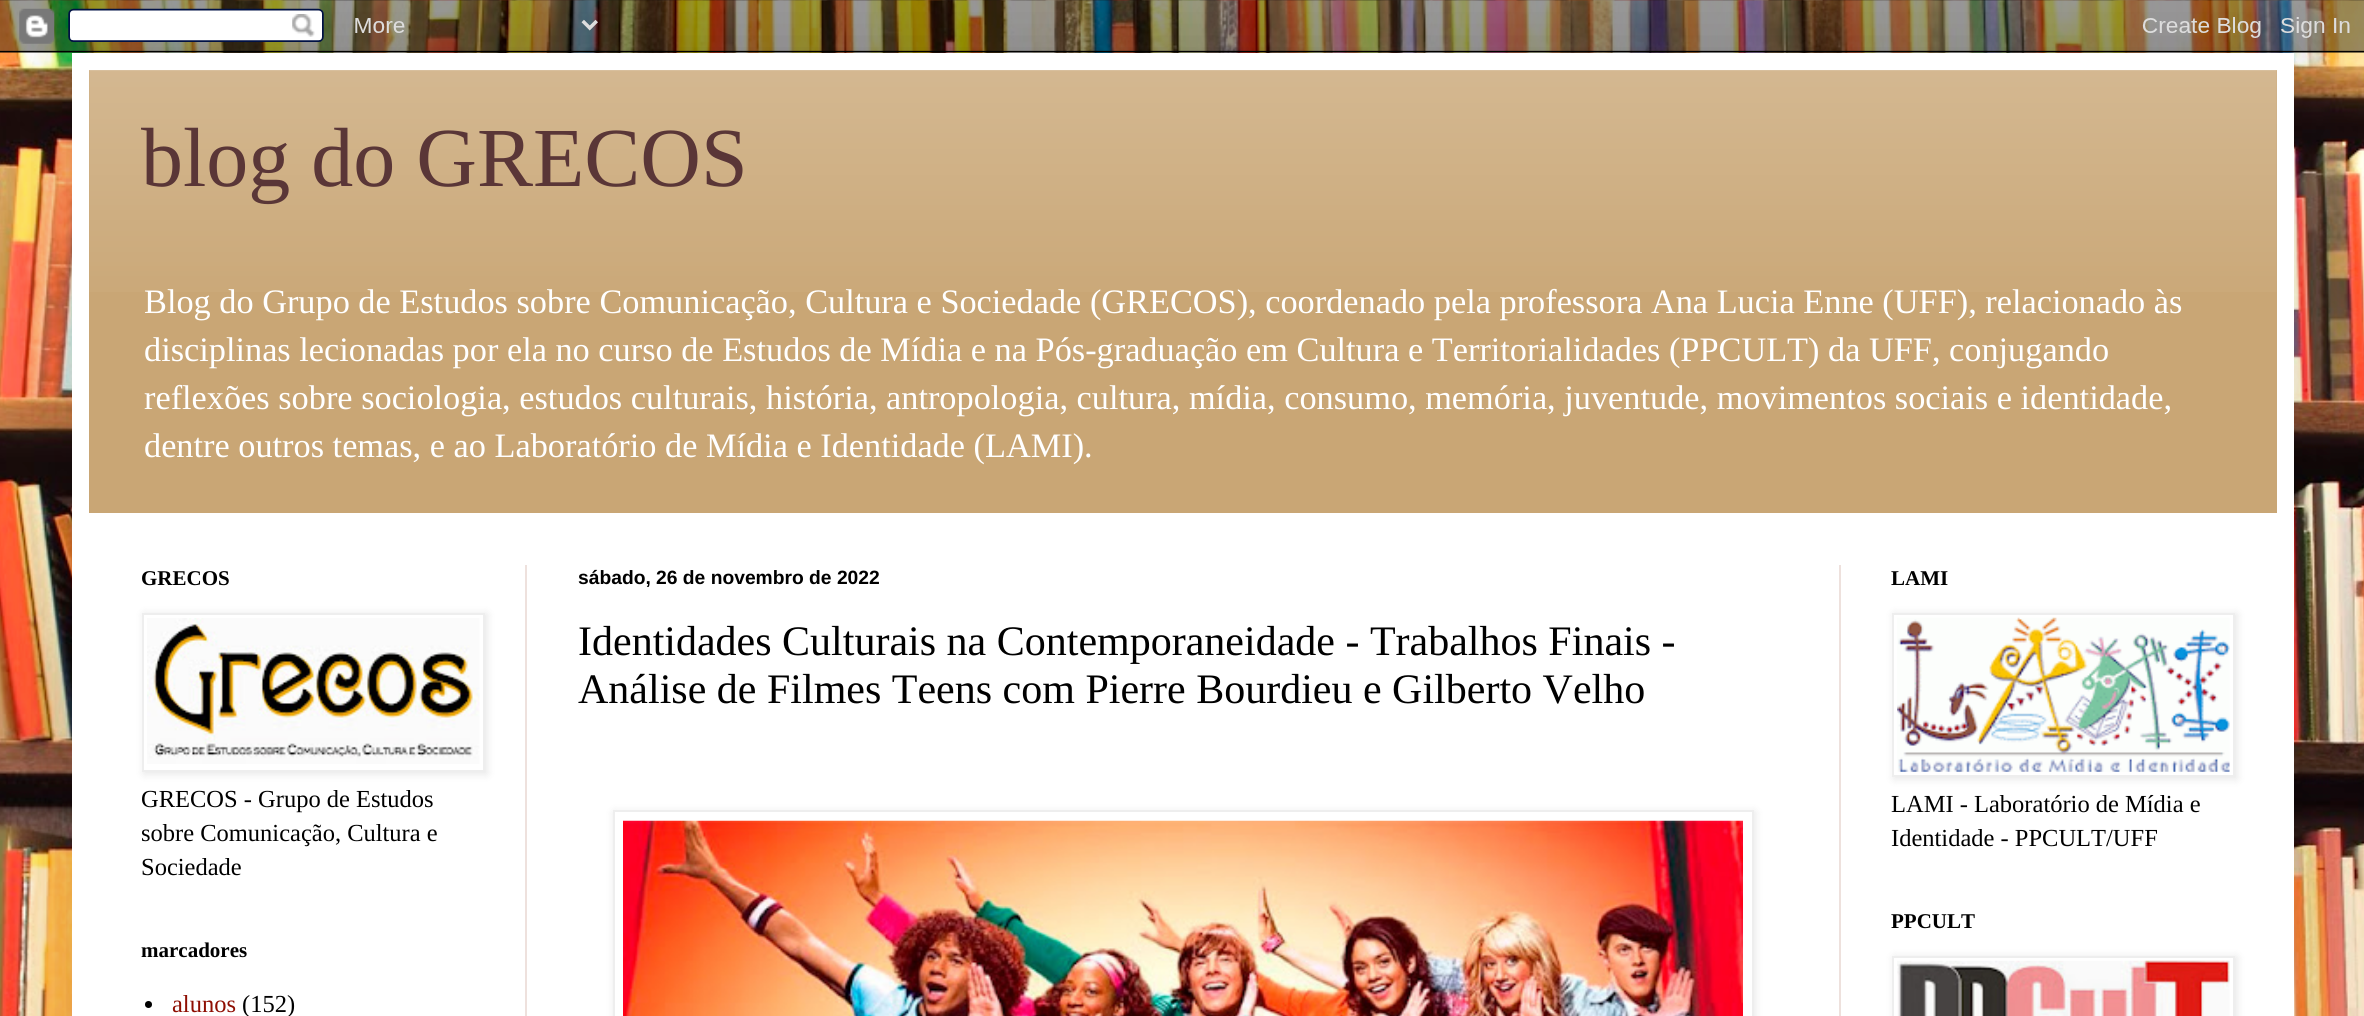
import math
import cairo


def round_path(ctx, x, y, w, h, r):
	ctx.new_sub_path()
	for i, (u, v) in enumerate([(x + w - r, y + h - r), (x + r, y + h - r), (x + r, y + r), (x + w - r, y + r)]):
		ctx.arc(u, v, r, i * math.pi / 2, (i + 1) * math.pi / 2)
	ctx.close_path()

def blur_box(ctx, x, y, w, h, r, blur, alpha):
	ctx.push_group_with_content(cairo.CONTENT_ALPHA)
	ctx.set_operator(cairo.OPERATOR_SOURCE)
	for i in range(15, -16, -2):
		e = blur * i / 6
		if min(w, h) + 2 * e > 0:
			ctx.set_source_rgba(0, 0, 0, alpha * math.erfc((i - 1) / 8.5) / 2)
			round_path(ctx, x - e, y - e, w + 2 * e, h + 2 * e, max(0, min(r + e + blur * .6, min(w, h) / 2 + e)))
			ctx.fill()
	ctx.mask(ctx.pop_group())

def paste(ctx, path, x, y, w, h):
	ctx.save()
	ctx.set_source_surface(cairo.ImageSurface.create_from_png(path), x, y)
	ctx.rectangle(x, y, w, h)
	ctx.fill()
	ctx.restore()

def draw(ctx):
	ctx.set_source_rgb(1, 1, 1)
	ctx.paint()
	paste(ctx, 'media/1.png', 0, 0, 2364, 1016)
	ctx.set_source_rgb(0, 0, 0)
	blur_box(ctx, 72, 53, 2222, 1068, 0, 35, 0.15)
	paste(ctx, 'media/2.png', 0, 0, 2364, 53)
	ctx.set_source_rgb(1, 1, 1)
	ctx.rectangle(72, 53, 2222, 963)
	ctx.fill()
	ctx.set_source_rgb(0.788, 0.651, 0.459)
	ctx.rectangle(89, 70, 2188, 443)
	ctx.fill()
	paste(ctx, 'media/3.png', 89, 70, 2188, 222)
	ctx.select_font_face('Liberation Serif')
	ctx.set_font_size(84)
	ctx.set_source_rgb(0.353, 0.212, 0.216)
	ctx.move_to(141, 186)
	ctx.show_text('blog do GRECOS')
	ctx.set_font_size(34.3)
	ctx.set_source_rgb(1, 1, 1)
	for x, y, s in [
		(144, 313, 'Blog do Grupo de Estudos sobre Comunicação, Cultura e Sociedade (GRECOS), coordenado pela professora Ana Lucia Enne (UFF), relacionado às'),
		(144, 361, 'disciplinas lecionadas por ela no curso de Estudos de Mídia e na Pós-graduação em Cultura e Territorialidades (PPCULT) da UFF, conjugando'),
		(144, 409, 'reflexões sobre sociologia, estudos culturais, história, antropologia, cultura, mídia, consumo, memória, juventude, movimentos sociais e identidade,'),
		(144, 457, 'dentre outros temas, e ao Laboratório de Mídia e Identidade (LAMI).'),
	]:
		ctx.move_to(x, y)
		ctx.show_text(s)
	ctx.set_source_rgb(0.933, 0.882, 0.867)
	ctx.rectangle(525, 565, 2, 451)
	ctx.fill()
	ctx.rectangle(1839, 565, 2, 451)
	ctx.fill()
	ctx.select_font_face('Liberation Serif', cairo.FONT_SLANT_NORMAL, cairo.FONT_WEIGHT_BOLD)
	ctx.set_font_size(21)
	ctx.set_source_rgb(0, 0, 0)
	ctx.move_to(141, 585)
	ctx.show_text('GRECOS')
	ctx.set_source_rgb(0, 0, 0)
	blur_box(ctx, 144, 614, 343, 160, 0, 4.5, 0.1)
	ctx.set_source_rgb(1, 1, 1)
	ctx.rectangle(143, 614, 341, 157)
	ctx.fill_preserve()
	ctx.set_source_rgb(0.933, 0.933, 0.933)
	ctx.stroke()
	paste(ctx, 'media/4.png', 147, 618, 333, 146)
	ctx.select_font_face('Liberation Serif')
	ctx.set_font_size(24.5)
	ctx.set_source_rgb(0, 0, 0)
	for x, y, s in [
		(141, 807, 'GRECOS - Grupo de Estudos'),
		(141, 841, 'sobre Comunicação, Cultura e'),
		(141, 875, 'Sociedade'),
	]:
		ctx.move_to(x, y)
		ctx.show_text(s)
	ctx.select_font_face('Liberation Serif', cairo.FONT_SLANT_NORMAL, cairo.FONT_WEIGHT_BOLD)
	ctx.set_font_size(21)
	ctx.move_to(141, 957)
	ctx.show_text('marcadores')
	ctx.new_path()
	ctx.arc(148.5, 1004.5, 3.5, 0, 2 * math.pi)
	ctx.fill()
	ctx.select_font_face('Liberation Serif')
	ctx.set_font_size(24.5)
	ctx.set_source_rgb(0.557, 0.055, 0.008)
	ctx.move_to(172, 1012)
	ctx.show_text('alunos')
	ctx.set_source_rgb(0, 0, 0)
	ctx.move_to(242, 1012)
	ctx.show_text('(152)')
	ctx.select_font_face('Liberation Sans', cairo.FONT_SLANT_NORMAL, cairo.FONT_WEIGHT_BOLD)
	ctx.set_font_size(19.25)
	ctx.move_to(578, 584)
	ctx.show_text('sábado, 26 de novembro de 2022')
	ctx.select_font_face('Liberation Serif')
	ctx.set_font_size(42)
	ctx.move_to(578, 655)
	ctx.show_text('Identidades Culturais na Contemporaneidade - Trabalhos Finais -')
	ctx.move_to(578, 703)
	ctx.show_text('Análise de Filmes Teens com Pierre Bourdieu e Gilberto Velho')
	ctx.set_source_rgb(0, 0, 0)
	blur_box(ctx, 614, 812, 1141, 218, 0, 4.5, 0.1)
	ctx.set_source_rgb(1, 1, 1)
	ctx.rectangle(614, 811, 1139, 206)
	ctx.fill_preserve()
	ctx.set_source_rgb(0.933, 0.933, 0.933)
	ctx.stroke()
	paste(ctx, 'media/5.png', 623, 820, 1120, 196)
	ctx.select_font_face('Liberation Serif', cairo.FONT_SLANT_NORMAL, cairo.FONT_WEIGHT_BOLD)
	ctx.set_font_size(21)
	ctx.set_source_rgb(0, 0, 0)
	ctx.move_to(1891, 585)
	ctx.show_text('LAMI')
	ctx.set_source_rgb(0, 0, 0)
	blur_box(ctx, 1894, 614, 343, 165, 0, 4.5, 0.1)
	ctx.set_source_rgb(1, 1, 1)
	ctx.rectangle(1893, 614, 341, 162)
	ctx.fill_preserve()
	ctx.set_source_rgb(0.933, 0.933, 0.933)
	ctx.stroke()
	paste(ctx, 'media/6.png', 1897, 617, 333, 155)
	ctx.select_font_face('Liberation Serif')
	ctx.set_font_size(24.5)
	ctx.set_source_rgb(0, 0, 0)
	ctx.move_to(1891, 812)
	ctx.show_text('LAMI - Laboratório de Mídia e')
	ctx.move_to(1891, 846)
	ctx.show_text('Identidade - PPCULT/UFF')
	ctx.select_font_face('Liberation Serif', cairo.FONT_SLANT_NORMAL, cairo.FONT_WEIGHT_BOLD)
	ctx.set_font_size(21)
	ctx.move_to(1891, 928)
	ctx.show_text('PPCULT')
	ctx.set_source_rgb(0, 0, 0)
	blur_box(ctx, 1894, 957, 343, 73, 0, 4.5, 0.1)
	ctx.set_source_rgb(1, 1, 1)
	ctx.rectangle(1893, 957, 341, 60)
	ctx.fill_preserve()
	ctx.set_source_rgb(0.933, 0.933, 0.933)
	ctx.stroke()
	paste(ctx, 'media/7.png', 1897, 960, 333, 56)


surface = cairo.ImageSurface(cairo.FORMAT_RGB24, 2364, 1016)
ctx = cairo.Context(surface)
options = cairo.FontOptions()
options.set_hint_metrics(cairo.HINT_METRICS_OFF)
options.set_hint_style(cairo.HINT_STYLE_NONE)
ctx.set_font_options(options)
ctx.set_miter_limit(4)
draw(ctx)
surface.write_to_png('image.png')
